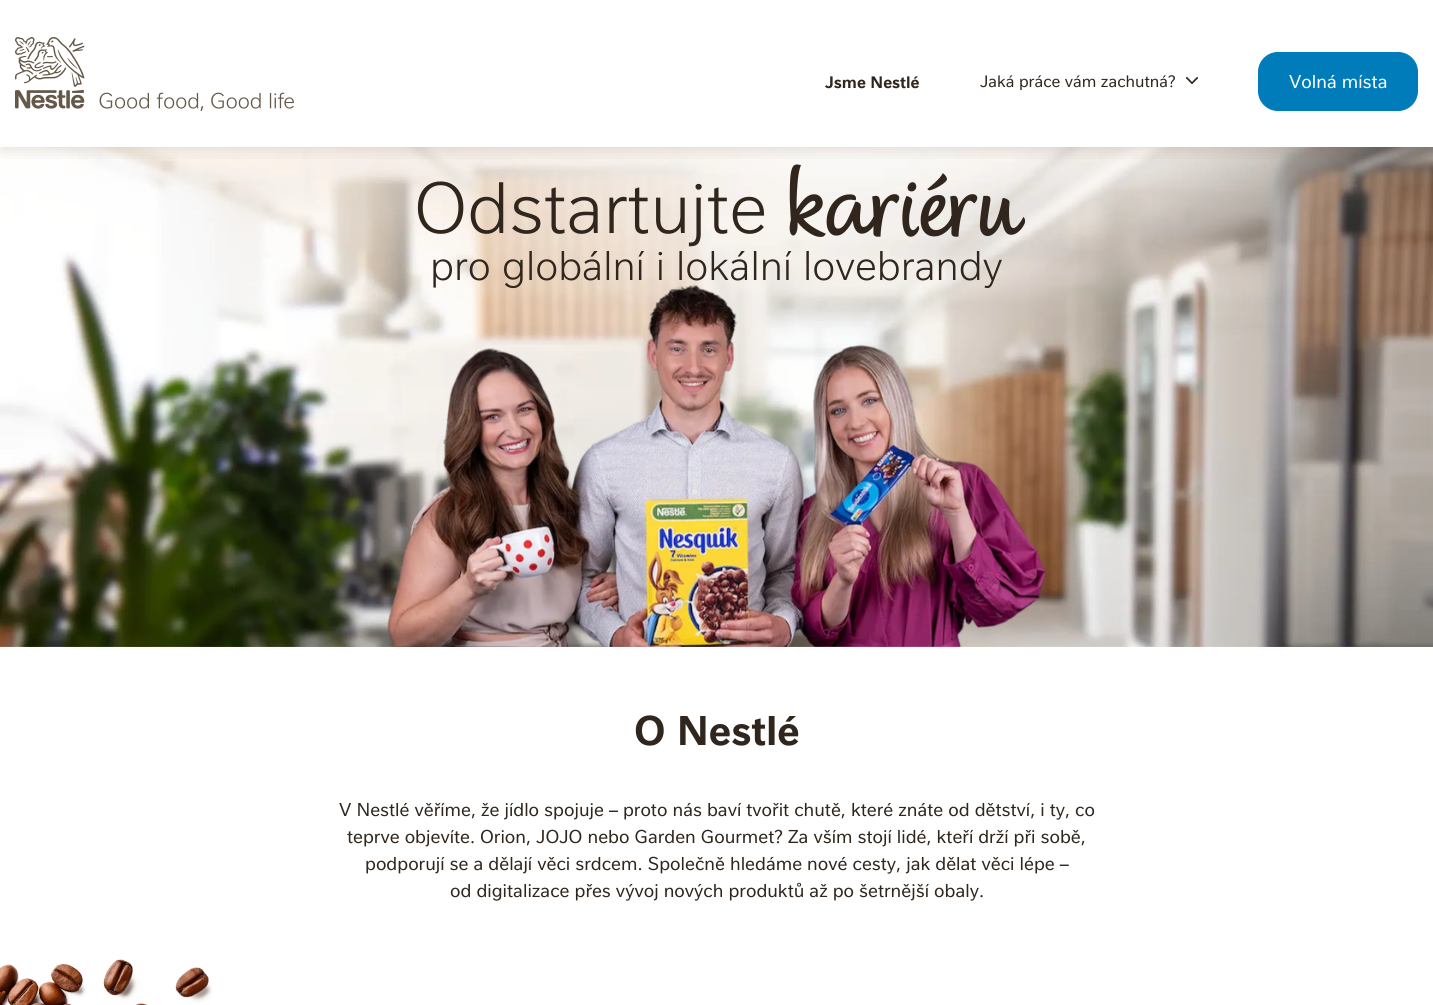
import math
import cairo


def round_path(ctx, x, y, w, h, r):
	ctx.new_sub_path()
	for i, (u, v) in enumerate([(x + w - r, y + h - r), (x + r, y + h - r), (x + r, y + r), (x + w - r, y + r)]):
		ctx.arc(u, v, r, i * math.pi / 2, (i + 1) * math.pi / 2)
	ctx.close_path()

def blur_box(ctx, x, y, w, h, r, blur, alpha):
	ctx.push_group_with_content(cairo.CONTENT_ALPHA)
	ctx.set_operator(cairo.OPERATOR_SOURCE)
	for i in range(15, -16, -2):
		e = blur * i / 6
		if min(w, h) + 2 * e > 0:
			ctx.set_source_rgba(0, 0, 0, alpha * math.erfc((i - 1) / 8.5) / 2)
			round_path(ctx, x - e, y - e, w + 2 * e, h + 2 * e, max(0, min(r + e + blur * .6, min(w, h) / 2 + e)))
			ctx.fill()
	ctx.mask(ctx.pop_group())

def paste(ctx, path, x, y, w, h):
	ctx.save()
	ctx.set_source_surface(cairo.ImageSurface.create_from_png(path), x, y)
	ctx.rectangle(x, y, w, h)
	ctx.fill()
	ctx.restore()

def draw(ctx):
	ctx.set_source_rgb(1, 1, 1)
	ctx.paint()
	paste(ctx, 'media/3.png', 0, 147, 1433, 500)
	ctx.save()
	ctx.rectangle(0, 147, 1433, 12)
	ctx.clip()
	ctx.set_source_rgb(0.388, 0.318, 0.239)
	blur_box(ctx, 2, 2, 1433, 147, 0, 8, 0.2)
	ctx.restore()
	paste(ctx, 'media/1.png', 15, 37, 279, 74)
	ctx.select_font_face('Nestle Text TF', cairo.FONT_SLANT_NORMAL, cairo.FONT_WEIGHT_BOLD)
	ctx.set_font_size(16)
	ctx.set_source_rgb(0.188, 0.149, 0.114)
	ctx.move_to(825, 88)
	ctx.show_text('Jsme Nestlé')
	ctx.select_font_face('Nestle Text TF')
	ctx.move_to(980, 87)
	ctx.show_text('Jaká práce vám zachutná?')
	paste(ctx, 'media/2.png', 1186, 77, 12, 7)
	ctx.set_source_rgb(0, 0.486, 0.729)
	round_path(ctx, 1258.5, 52.5, 159, 58, 19.5)
	ctx.fill_preserve()
	ctx.set_line_width(1)
	ctx.stroke()
	ctx.set_font_size(18)
	ctx.set_source_rgb(1, 1, 1)
	ctx.move_to(1289, 88)
	ctx.show_text('Volná místa')
	ctx.select_font_face('Nestle Text TF Light')
	ctx.set_font_size(70)
	ctx.set_source_rgb(0.188, 0.149, 0.114)
	ctx.move_to(414, 233)
	ctx.show_text('Odstartujte')
	ctx.select_font_face('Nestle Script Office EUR')
	ctx.set_font_size(107)
	ctx.move_to(787, 235)
	ctx.show_text('kariéru')
	ctx.select_font_face('Nestle Text TF Light')
	ctx.set_font_size(40)
	ctx.move_to(430, 280)
	ctx.show_text('pro globální i lokální lovebrandy')
	paste(ctx, 'media/4.png', 387, 284, 659, 363)
	ctx.select_font_face('Nestle Text TF', cairo.FONT_SLANT_NORMAL, cairo.FONT_WEIGHT_BOLD)
	ctx.move_to(634, 745)
	ctx.show_text('O Nestlé')
	ctx.select_font_face('Nestle Text TF')
	ctx.set_font_size(18)
	for x, y, s in [
		(339, 816, 'V Nestlé věříme, že jídlo spojuje – proto nás baví tvořit chutě, které znáte od dětství, i ty, co'),
		(347, 843, 'teprve objevíte. Orion, JOJO nebo Garden Gourmet? Za vším stojí lidé, kteří drží při sobě,'),
		(365, 870, 'podporují se a dělají věci srdcem. Společně hledáme nové cesty, jak dělat věci lépe –'),
		(450, 897, 'od digitalizace přes vývoj nových produktů až po šetrnější obaly.'),
	]:
		ctx.move_to(x, y)
		ctx.show_text(s)
	paste(ctx, 'media/5.png', 0, 959, 213, 46)


surface = cairo.ImageSurface(cairo.FORMAT_RGB24, 1433, 1005)
ctx = cairo.Context(surface)
options = cairo.FontOptions()
options.set_hint_metrics(cairo.HINT_METRICS_OFF)
options.set_hint_style(cairo.HINT_STYLE_NONE)
ctx.set_font_options(options)
ctx.set_miter_limit(4)
draw(ctx)
surface.write_to_png('image.png')
